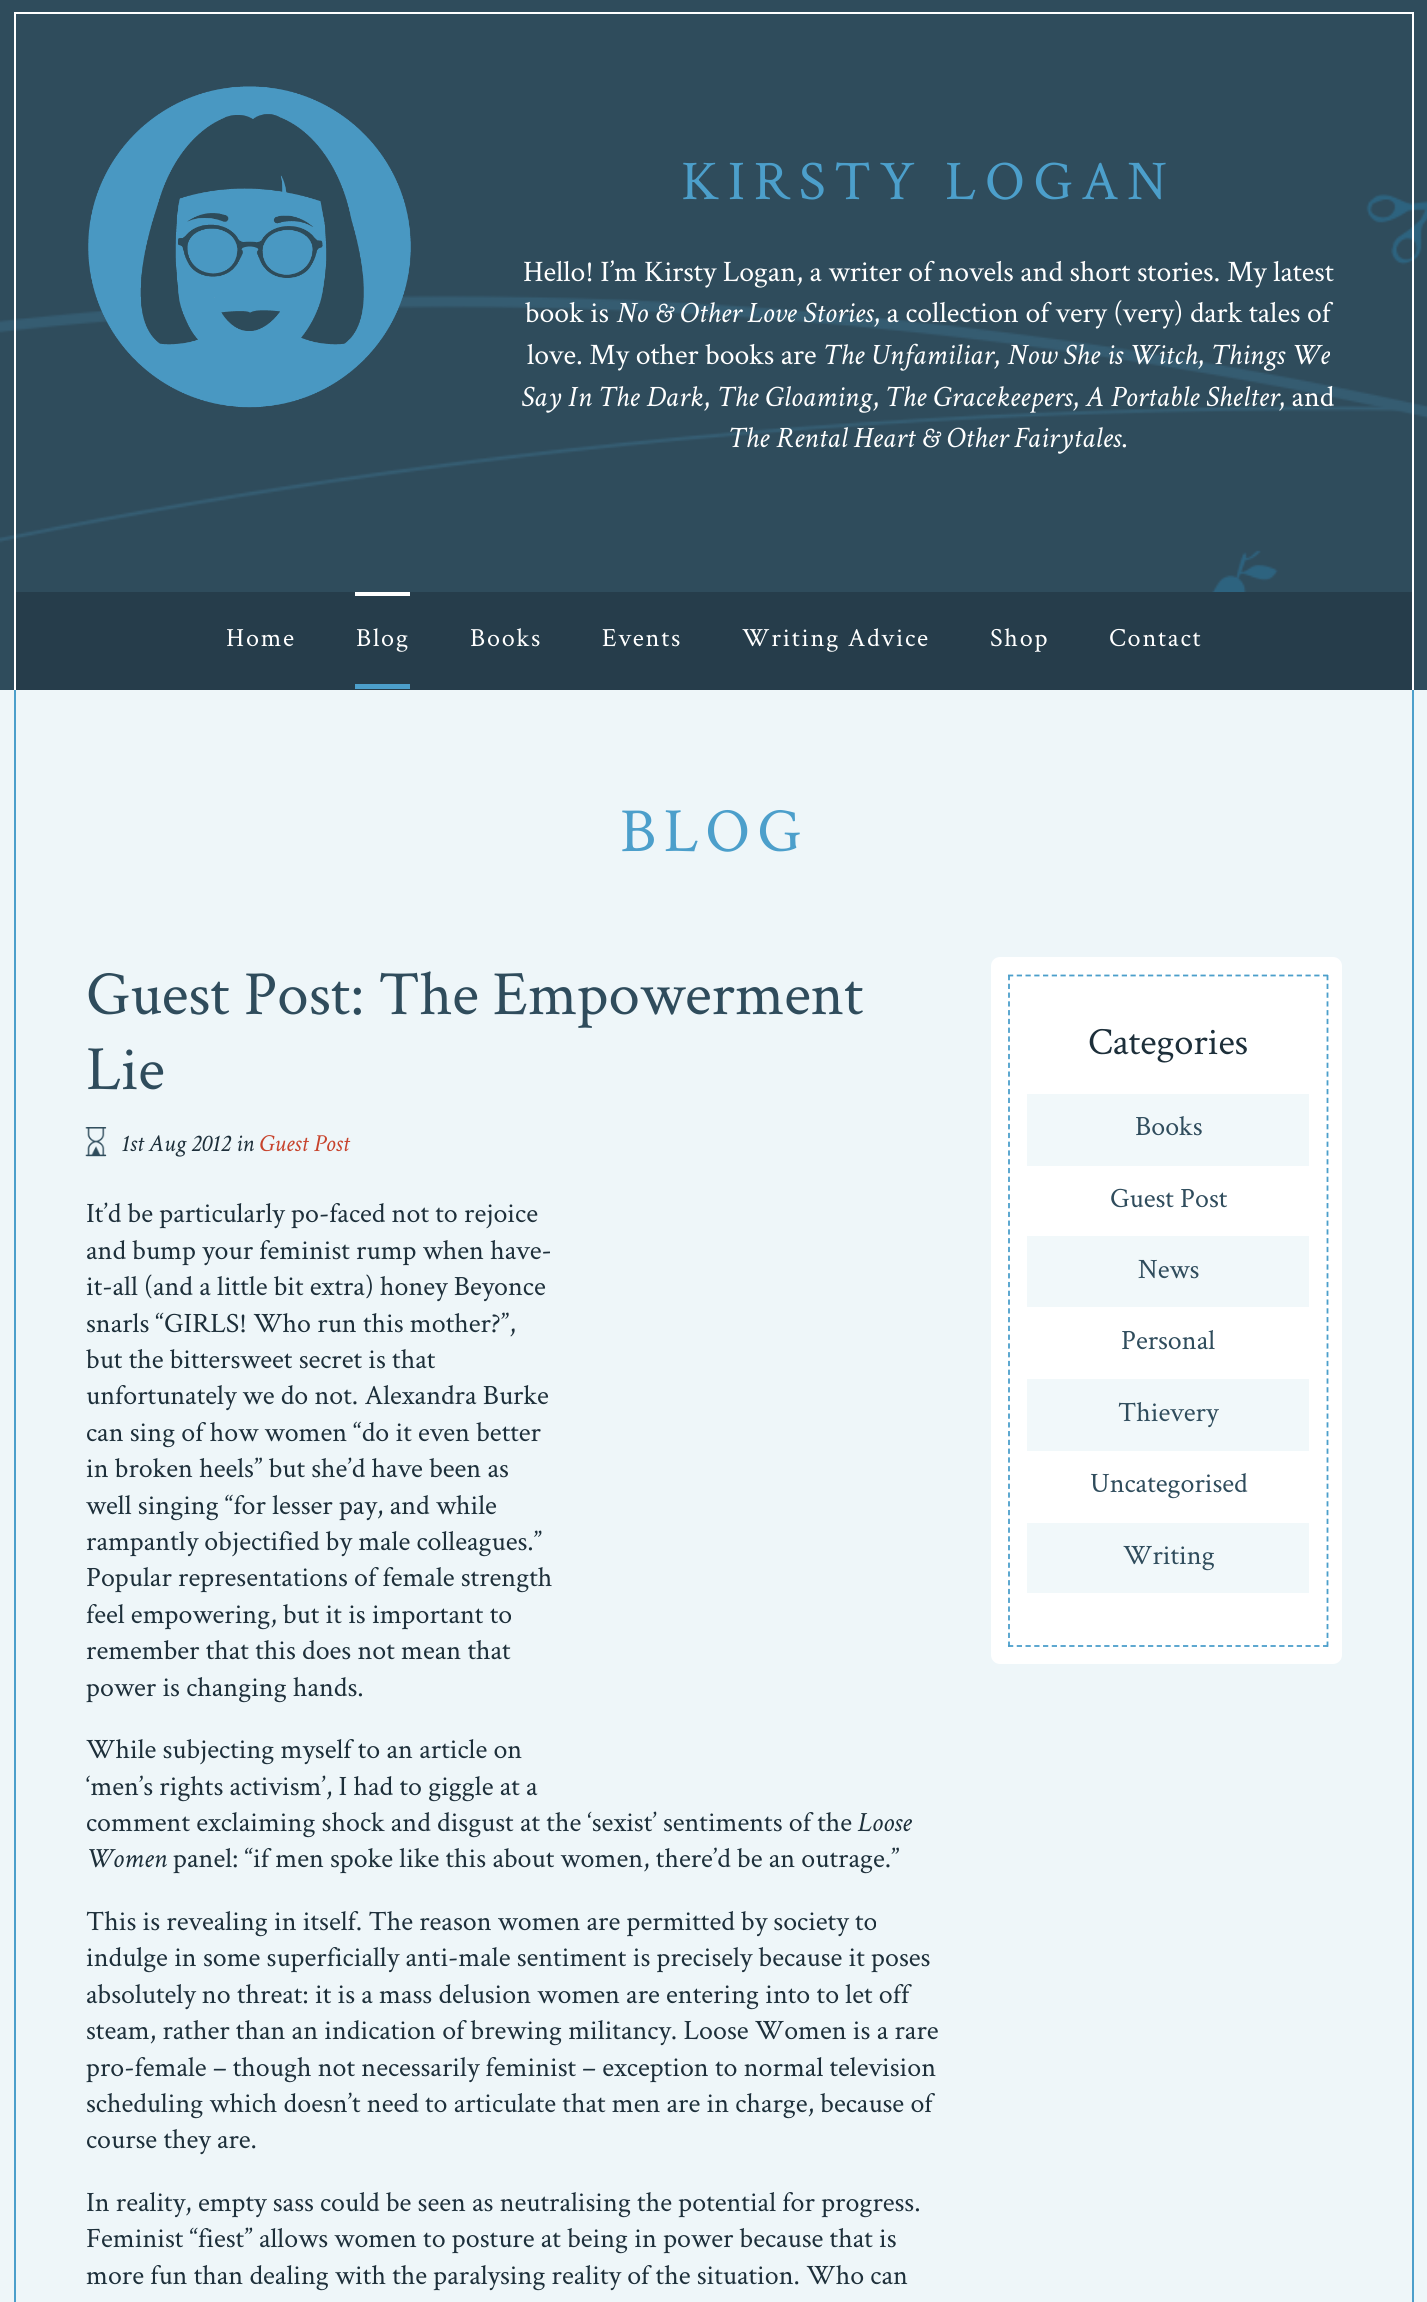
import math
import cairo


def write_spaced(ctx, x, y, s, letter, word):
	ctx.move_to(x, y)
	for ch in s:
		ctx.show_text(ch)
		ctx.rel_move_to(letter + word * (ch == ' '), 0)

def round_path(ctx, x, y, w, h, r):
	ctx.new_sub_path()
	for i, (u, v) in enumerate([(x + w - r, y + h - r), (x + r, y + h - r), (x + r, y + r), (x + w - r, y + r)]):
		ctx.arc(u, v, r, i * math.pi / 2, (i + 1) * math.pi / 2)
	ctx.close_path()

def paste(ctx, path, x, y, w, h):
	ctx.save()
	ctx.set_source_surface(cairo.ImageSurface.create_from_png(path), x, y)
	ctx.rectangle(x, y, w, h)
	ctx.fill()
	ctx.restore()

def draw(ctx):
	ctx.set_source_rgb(0.184, 0.298, 0.361)
	ctx.paint()
	paste(ctx, 'media/1.png', 0, 194, 1427, 398)
	ctx.set_source_rgb(1, 1, 1)
	ctx.rectangle(14, 12, 1400, 2)
	ctx.rectangle(1412, 12, 2, 678)
	ctx.rectangle(14, 12, 2, 678)
	ctx.fill()
	paste(ctx, 'media/2.png', 88, 86, 323, 322)
	ctx.select_font_face('Crimson Text')
	ctx.set_font_size(56)
	ctx.set_source_rgb(0.298, 0.624, 0.796)
	write_spaced(ctx, 681, 199, 'KIRSTY LOGAN', 8.75, 0)
	ctx.set_font_size(29.75)
	ctx.set_source_rgb(1, 1, 1)
	ctx.move_to(523, 281)
	ctx.show_text('Hello! I’m Kirsty Logan, a writer of novels and short stories. My latest')
	ctx.move_to(525, 322)
	ctx.show_text('book is')
	ctx.select_font_face('Crimson Text', cairo.FONT_SLANT_ITALIC)
	ctx.move_to(616, 322)
	ctx.show_text('No & Other Love Stories')
	ctx.select_font_face('Crimson Text')
	ctx.move_to(873, 322)
	ctx.show_text(', a collection of very (very) dark tales of')
	ctx.move_to(527, 364)
	ctx.show_text('love. My other books are')
	ctx.select_font_face('Crimson Text', cairo.FONT_SLANT_ITALIC)
	ctx.move_to(823, 364)
	ctx.show_text('The Unfamiliar')
	ctx.select_font_face('Crimson Text')
	ctx.move_to(993, 364)
	ctx.show_text(',')
	ctx.select_font_face('Crimson Text', cairo.FONT_SLANT_ITALIC)
	ctx.move_to(1007, 364)
	ctx.show_text('Now She is Witch')
	ctx.select_font_face('Crimson Text')
	ctx.move_to(1197, 364)
	ctx.show_text(',')
	ctx.select_font_face('Crimson Text', cairo.FONT_SLANT_ITALIC)
	ctx.move_to(1211, 364)
	ctx.show_text('Things We')
	ctx.move_to(521, 406)
	ctx.show_text('Say In The Dark')
	ctx.select_font_face('Crimson Text')
	ctx.move_to(703, 406)
	ctx.show_text(',')
	ctx.select_font_face('Crimson Text', cairo.FONT_SLANT_ITALIC)
	ctx.move_to(717, 406)
	ctx.show_text('The Gloaming')
	ctx.select_font_face('Crimson Text')
	ctx.move_to(872, 406)
	ctx.show_text(',')
	ctx.select_font_face('Crimson Text', cairo.FONT_SLANT_ITALIC)
	ctx.move_to(885, 406)
	ctx.show_text('The Gracekeepers')
	ctx.select_font_face('Crimson Text')
	ctx.move_to(1072, 406)
	ctx.show_text(',')
	ctx.select_font_face('Crimson Text', cairo.FONT_SLANT_ITALIC)
	ctx.move_to(1086, 406)
	ctx.show_text('A Portable Shelter')
	ctx.select_font_face('Crimson Text')
	ctx.move_to(1278, 406)
	ctx.show_text(', and')
	ctx.select_font_face('Crimson Text', cairo.FONT_SLANT_ITALIC)
	ctx.move_to(728, 447)
	ctx.show_text('The Rental Heart & Other Fairytales')
	ctx.select_font_face('Crimson Text')
	ctx.move_to(1121, 447)
	ctx.show_text('.')
	ctx.set_source_rgb(0.149, 0.239, 0.294)
	ctx.rectangle(16, 592, 1396, 98)
	ctx.fill()
	ctx.set_font_size(26.25)
	ctx.set_source_rgb(1, 1, 1)
	write_spaced(ctx, 226, 646, 'Home', 1.75, 0)
	ctx.rectangle(355, 592, 55, 4)
	ctx.fill()
	ctx.set_source_rgb(0.298, 0.624, 0.796)
	ctx.rectangle(355, 684, 55, 5)
	ctx.fill()
	ctx.set_source_rgb(1, 1, 1)
	for x, y, s in [
		(356, 646, 'Blog'),
		(470, 646, 'Books'),
		(602, 646, 'Events'),
		(742, 646, 'Writing Advice'),
		(990, 646, 'Shop'),
		(1109, 646, 'Contact'),
	]:
		write_spaced(ctx, x, y, s, 1.75, 0)
	ctx.set_source_rgb(0.933, 0.961, 0.976)
	ctx.rectangle(0, 690, 1427, 1612)
	ctx.fill()
	ctx.set_source_rgb(0.298, 0.624, 0.796)
	ctx.rectangle(1412, 690, 2, 1612)
	ctx.rectangle(14, 690, 2, 1612)
	ctx.fill()
	ctx.set_font_size(63)
	write_spaced(ctx, 620, 851, 'BLOG', 7, 0)
	ctx.set_source_rgb(0.184, 0.298, 0.361)
	ctx.move_to(86, 1014)
	ctx.show_text('Guest Post: The Empowerment')
	ctx.move_to(86, 1089)
	ctx.show_text('Lie')
	paste(ctx, 'media/3.png', 85, 1127, 22, 30)
	ctx.select_font_face('Crimson Text', cairo.FONT_SLANT_ITALIC)
	ctx.set_font_size(24.5)
	ctx.set_source_rgb(0.114, 0.184, 0.227)
	ctx.move_to(121, 1151)
	ctx.show_text('1st Aug 2012 in')
	ctx.set_source_rgb(0.78, 0.263, 0.173)
	ctx.move_to(259, 1151)
	ctx.show_text('Guest Post')
	ctx.select_font_face('Crimson Text')
	ctx.set_font_size(28)
	ctx.set_source_rgb(0.114, 0.184, 0.227)
	for x, y, s in [
		(86, 1222, 'It’d be particularly po-faced not to rejoice'),
		(86, 1259, 'and bump your feminist rump when have-'),
		(86, 1295, 'it-all (and a little bit extra) honey Beyonce'),
		(86, 1332, 'snarls “GIRLS! Who run this mother?”,'),
		(86, 1368, 'but the bittersweet secret is that'),
		(86, 1404, 'unfortunately we do not. Alexandra Burke'),
		(86, 1441, 'can sing of how women “do it even better'),
		(86, 1477, 'in broken heels” but she’d have been as'),
		(86, 1514, 'well singing “for lesser pay, and while'),
		(86, 1550, 'rampantly objectified by male colleagues.”'),
		(86, 1586, 'Popular representations of female strength'),
		(86, 1623, 'feel empowering, but it is important to'),
		(86, 1659, 'remember that this does not mean that'),
		(86, 1696, 'power is changing hands.'),
		(86, 1758, 'While subjecting myself to an article on'),
		(86, 1795, '‘men’s rights activism’, I had to giggle at a'),
		(86, 1831, 'comment exclaiming shock and disgust at the ‘sexist’ sentiments of the'),
	]:
		ctx.move_to(x, y)
		ctx.show_text(s)
	ctx.select_font_face('Crimson Text', cairo.FONT_SLANT_ITALIC)
	ctx.move_to(858, 1831)
	ctx.show_text('Loose')
	ctx.move_to(86, 1867)
	ctx.show_text('Women')
	ctx.select_font_face('Crimson Text')
	for x, y, s in [
		(173, 1867, 'panel: “if men spoke like this about women, there’d be an outrage.”'),
		(86, 1930, 'This is revealing in itself. The reason women are permitted by society to'),
		(86, 1966, 'indulge in some superficially anti-male sentiment is precisely because it poses'),
		(86, 2003, 'absolutely no threat: it is a mass delusion women are entering into to let off'),
		(86, 2039, 'steam, rather than an indication of brewing militancy. Loose Women is a rare'),
		(86, 2076, 'pro-female – though not necessarily feminist – exception to normal television'),
		(86, 2112, 'scheduling which doesn’t need to articulate that men are in charge, because of'),
		(86, 2148, 'course they are.'),
		(86, 2211, 'In reality, empty sass could be seen as neutralising the potential for progress.'),
		(86, 2247, 'Feminist “fiest” allows women to posture at being in power because that is'),
		(86, 2284, 'more fun than dealing with the paralysing reality of the situation. Who can'),
	]:
		ctx.move_to(x, y)
		ctx.show_text(s)
	ctx.set_source_rgb(1, 1, 1)
	round_path(ctx, 991, 957, 351, 707, 9)
	ctx.fill()
	ctx.new_path()
	ctx.move_to(1008, 975.5)
	ctx.line_to(1328, 975.5)
	ctx.set_source_rgb(0.298, 0.624, 0.796)
	ctx.set_line_width(1.8)
	ctx.set_dash([5.25, 3.5])
	ctx.stroke()
	ctx.new_path()
	ctx.move_to(1327.5, 975)
	ctx.line_to(1327.5, 1647)
	ctx.set_dash([5.25, 3.52])
	ctx.stroke()
	ctx.new_path()
	ctx.move_to(1008, 1646)
	ctx.line_to(1328, 1646)
	ctx.set_dash([5.25, 3.5])
	ctx.stroke()
	ctx.new_path()
	ctx.move_to(1009, 975)
	ctx.line_to(1009, 1647)
	ctx.set_dash([5.25, 3.52])
	ctx.stroke()
	ctx.set_font_size(38.5)
	ctx.set_source_rgb(0.114, 0.184, 0.227)
	ctx.move_to(1088, 1054)
	ctx.show_text('Categories')
	ctx.set_source_rgb(0.945, 0.969, 0.98)
	ctx.rectangle(1027, 1094, 282, 72)
	ctx.fill()
	ctx.set_font_size(28)
	ctx.set_source_rgb(0.184, 0.298, 0.361)
	ctx.move_to(1135, 1135)
	ctx.show_text('Books')
	ctx.move_to(1110, 1207)
	ctx.show_text('Guest Post')
	ctx.set_source_rgb(0.945, 0.969, 0.98)
	ctx.rectangle(1027, 1236, 282, 71)
	ctx.fill()
	ctx.set_source_rgb(0.184, 0.298, 0.361)
	ctx.move_to(1138, 1278)
	ctx.show_text('News')
	ctx.move_to(1121, 1349)
	ctx.show_text('Personal')
	ctx.set_source_rgb(0.945, 0.969, 0.98)
	ctx.rectangle(1027, 1379, 282, 72)
	ctx.fill()
	ctx.set_source_rgb(0.184, 0.298, 0.361)
	ctx.move_to(1118, 1421)
	ctx.show_text('Thievery')
	ctx.move_to(1090, 1492)
	ctx.show_text('Uncategorised')
	ctx.set_source_rgb(0.945, 0.969, 0.98)
	ctx.rectangle(1027, 1523, 282, 70)
	ctx.fill()
	ctx.set_source_rgb(0.184, 0.298, 0.361)
	ctx.move_to(1123, 1564)
	ctx.show_text('Writing')


surface = cairo.ImageSurface(cairo.FORMAT_RGB24, 1427, 2302)
ctx = cairo.Context(surface)
options = cairo.FontOptions()
options.set_hint_metrics(cairo.HINT_METRICS_OFF)
options.set_hint_style(cairo.HINT_STYLE_NONE)
ctx.set_font_options(options)
ctx.set_miter_limit(4)
draw(ctx)
surface.write_to_png('image.png')
